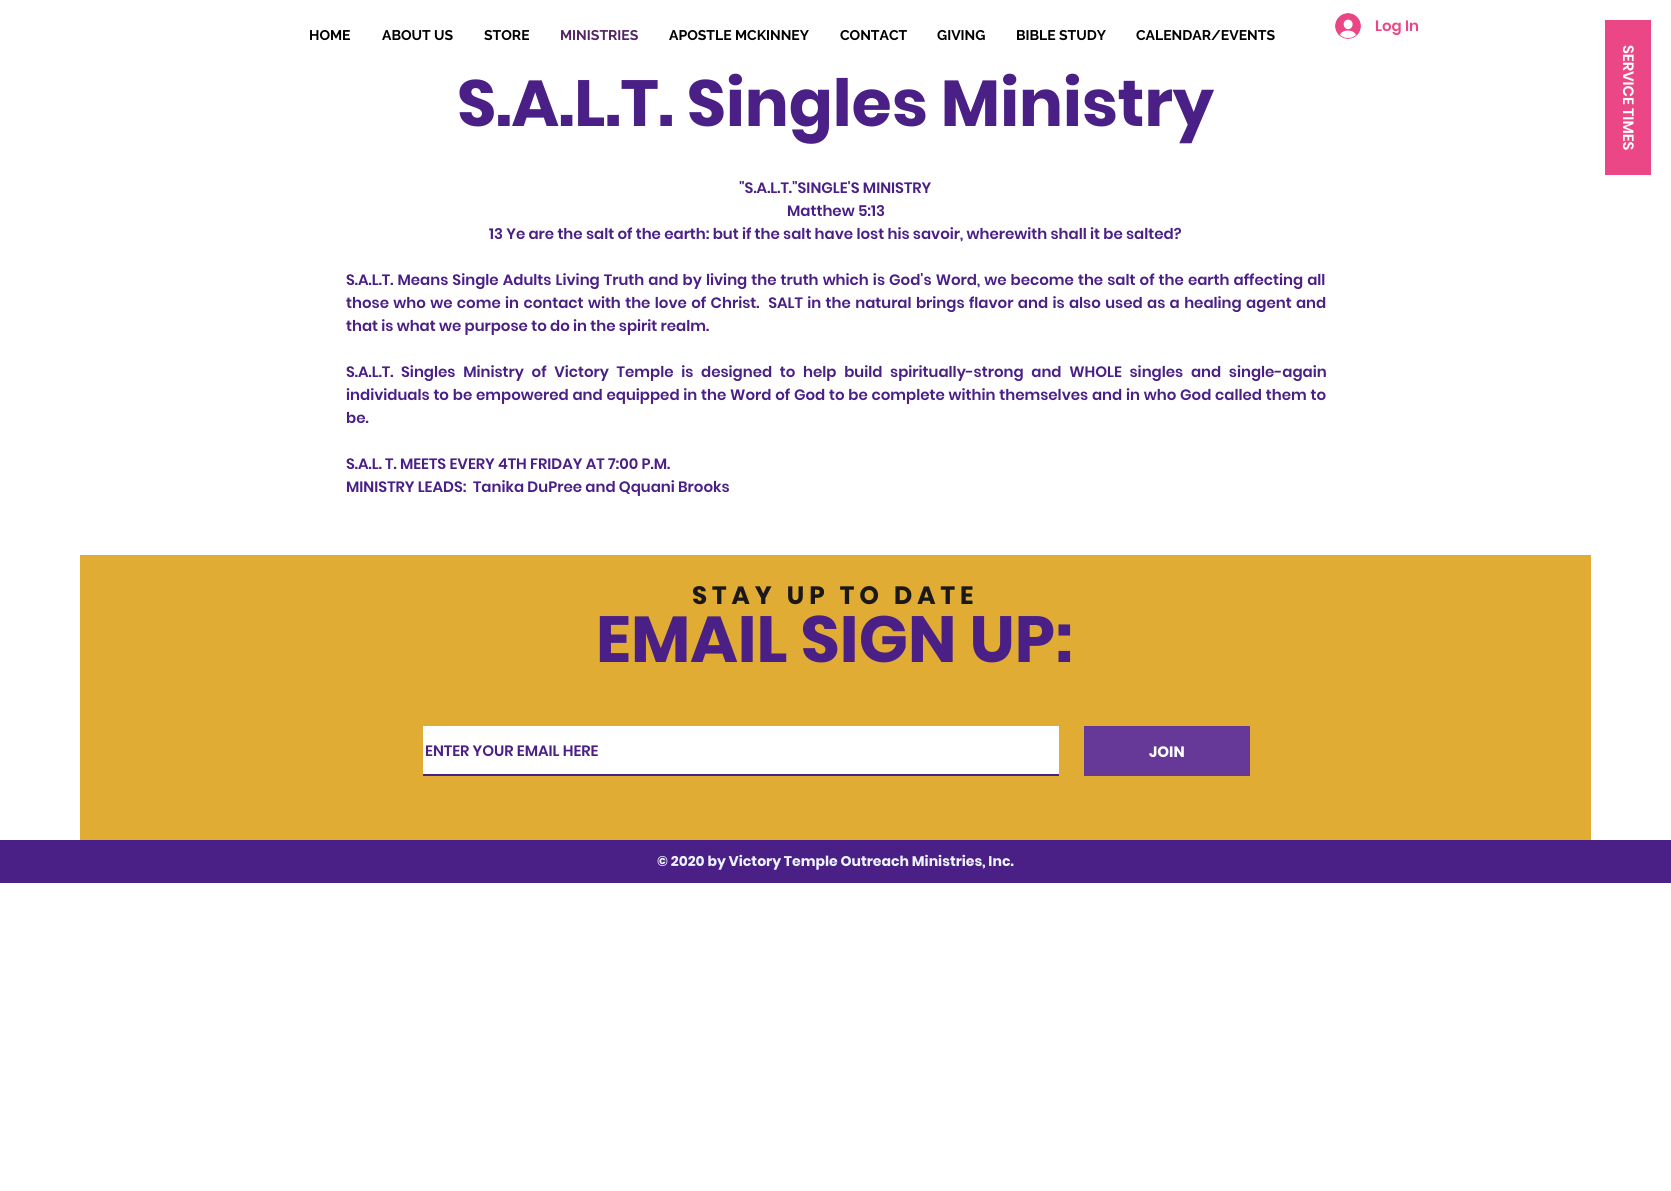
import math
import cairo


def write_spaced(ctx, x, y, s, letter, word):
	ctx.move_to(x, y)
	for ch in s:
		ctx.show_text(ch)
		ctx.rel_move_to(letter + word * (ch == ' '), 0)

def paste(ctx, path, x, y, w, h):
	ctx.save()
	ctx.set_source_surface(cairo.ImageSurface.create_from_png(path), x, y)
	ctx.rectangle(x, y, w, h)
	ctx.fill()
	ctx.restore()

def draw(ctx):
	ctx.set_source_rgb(1, 1, 1)
	ctx.paint()
	ctx.select_font_face('Raleway', cairo.FONT_SLANT_NORMAL, cairo.FONT_WEIGHT_BOLD)
	ctx.set_font_size(14)
	ctx.set_source_rgb(0, 0, 0)
	for x, y, s in [
		(309, 40, 'HOME'),
		(382, 40, 'ABOUT US'),
		(484, 40, 'STORE'),
	]:
		ctx.move_to(x, y)
		ctx.show_text(s)
	ctx.set_source_rgb(0.325, 0.145, 0.388)
	ctx.move_to(560, 40)
	ctx.show_text('MINISTRIES')
	ctx.set_source_rgb(0, 0, 0)
	for x, y, s in [
		(669, 40, 'APOSTLE MCKINNEY'),
		(840, 40, 'CONTACT'),
		(937, 40, 'GIVING'),
		(1016, 40, 'BIBLE STUDY'),
		(1136, 40, 'CALENDAR/EVENTS'),
	]:
		ctx.move_to(x, y)
		ctx.show_text(s)
	paste(ctx, 'media/1.png', 1335, 13, 26, 26)
	ctx.select_font_face('Poppins SemiBold')
	ctx.set_font_size(15)
	ctx.set_source_rgb(0.918, 0.275, 0.525)
	ctx.move_to(1375, 31)
	ctx.show_text('Log In')
	ctx.select_font_face('Poppins', cairo.FONT_SLANT_NORMAL, cairo.FONT_WEIGHT_BOLD)
	ctx.set_font_size(65)
	ctx.set_source_rgb(0.294, 0.125, 0.525)
	ctx.move_to(457, 126)
	ctx.show_text('S.A.L.T. Singles Ministry')
	ctx.select_font_face('Poppins SemiBold')
	ctx.set_font_size(15)
	for x, y, s in [
		(739, 193, '"S.A.L.T."SINGLE\'S MINISTRY'),
		(787, 216, 'Matthew 5:13'),
		(489, 239, '13 Ye are the salt of the earth: but if the salt have lost his savoir, wherewith shall it be salted?'),
	]:
		ctx.move_to(x, y)
		ctx.show_text(s)
	write_spaced(ctx, 346, 285, 'S.A.L.T. Means Single Adults Living Truth and by living the truth which is God\'s Word, we become the salt of the earth affecting all', 0, 0.8)
	write_spaced(ctx, 346, 308, 'those who we come in contact with the love of Christ.  SALT in the natural brings flavor and is also used as a healing agent and', 0, 1.1)
	ctx.move_to(346, 331)
	ctx.show_text('that is what we purpose to do in the spirit realm.')
	write_spaced(ctx, 346, 377, 'S.A.L.T. Singles Ministry of Victory Temple is designed to help build spiritually-strong and WHOLE singles and single-again', 0, 4.4)
	write_spaced(ctx, 346, 400, 'individuals to be empowered and equipped in the Word of God to be complete within themselves and in who God called them to', 0, 0.5)
	for x, y, s in [
		(346, 423, 'be.'),
		(346, 469, 'S.A.L. T. MEETS EVERY 4TH FRIDAY AT 7:00 P.M.'),
		(346, 492, 'MINISTRY LEADS:  Tanika DuPree and Qquani Brooks'),
	]:
		ctx.move_to(x, y)
		ctx.show_text(s)
	ctx.set_source_rgb(0.918, 0.275, 0.525)
	ctx.rectangle(1605, 20, 46, 155)
	ctx.fill()
	ctx.set_source_rgb(1, 1, 1)
	ctx.save()
	ctx.translate(1623, 45)
	ctx.rotate(90 * math.pi / 180)
	ctx.move_to(0, 0)
	ctx.show_text('SERVICE')
	ctx.restore()
	ctx.save()
	ctx.translate(1623, 108)
	ctx.rotate(90 * math.pi / 180)
	ctx.move_to(0, 0)
	ctx.show_text('TIMES')
	ctx.restore()
	ctx.set_source_rgb(0.878, 0.675, 0.204)
	ctx.rectangle(80, 555, 1511, 285)
	ctx.fill()
	ctx.select_font_face('Poppins', cairo.FONT_SLANT_NORMAL, cairo.FONT_WEIGHT_BOLD)
	ctx.set_font_size(25)
	ctx.set_source_rgb(0.102, 0.094, 0.094)
	write_spaced(ctx, 692, 604, 'STAY UP TO DATE', 5, 0)
	ctx.set_font_size(65)
	ctx.set_source_rgb(0.294, 0.125, 0.525)
	ctx.move_to(596, 662)
	ctx.show_text('EMAIL SIGN UP:')
	ctx.set_source_rgb(1, 1, 1)
	ctx.rectangle(423, 726, 636, 48)
	ctx.fill()
	ctx.set_source_rgb(0.294, 0.125, 0.525)
	ctx.rectangle(423, 774, 636, 2)
	ctx.fill()
	ctx.select_font_face('Poppins SemiBold')
	ctx.set_font_size(15)
	ctx.move_to(425, 756)
	ctx.show_text('ENTER YOUR EMAIL HERE')
	ctx.set_source_rgb(0.4, 0.22, 0.596)
	ctx.rectangle(1084, 726, 166, 50)
	ctx.fill()
	ctx.select_font_face('Poppins', cairo.FONT_SLANT_NORMAL, cairo.FONT_WEIGHT_BOLD)
	ctx.set_source_rgb(1, 1, 1)
	ctx.move_to(1149, 757)
	ctx.show_text('JOIN')
	ctx.set_source_rgb(0.294, 0.125, 0.525)
	ctx.rectangle(0, 840, 1671, 43)
	ctx.fill()
	ctx.set_font_size(14)
	ctx.set_source_rgb(0.918, 0.953, 1)
	ctx.move_to(657, 866)
	ctx.show_text('© 2020 by Victory Temple Outreach Ministries, Inc.')


surface = cairo.ImageSurface(cairo.FORMAT_RGB24, 1671, 1191)
ctx = cairo.Context(surface)
options = cairo.FontOptions()
options.set_hint_metrics(cairo.HINT_METRICS_OFF)
options.set_hint_style(cairo.HINT_STYLE_NONE)
ctx.set_font_options(options)
ctx.set_miter_limit(4)
draw(ctx)
surface.write_to_png('image.png')
